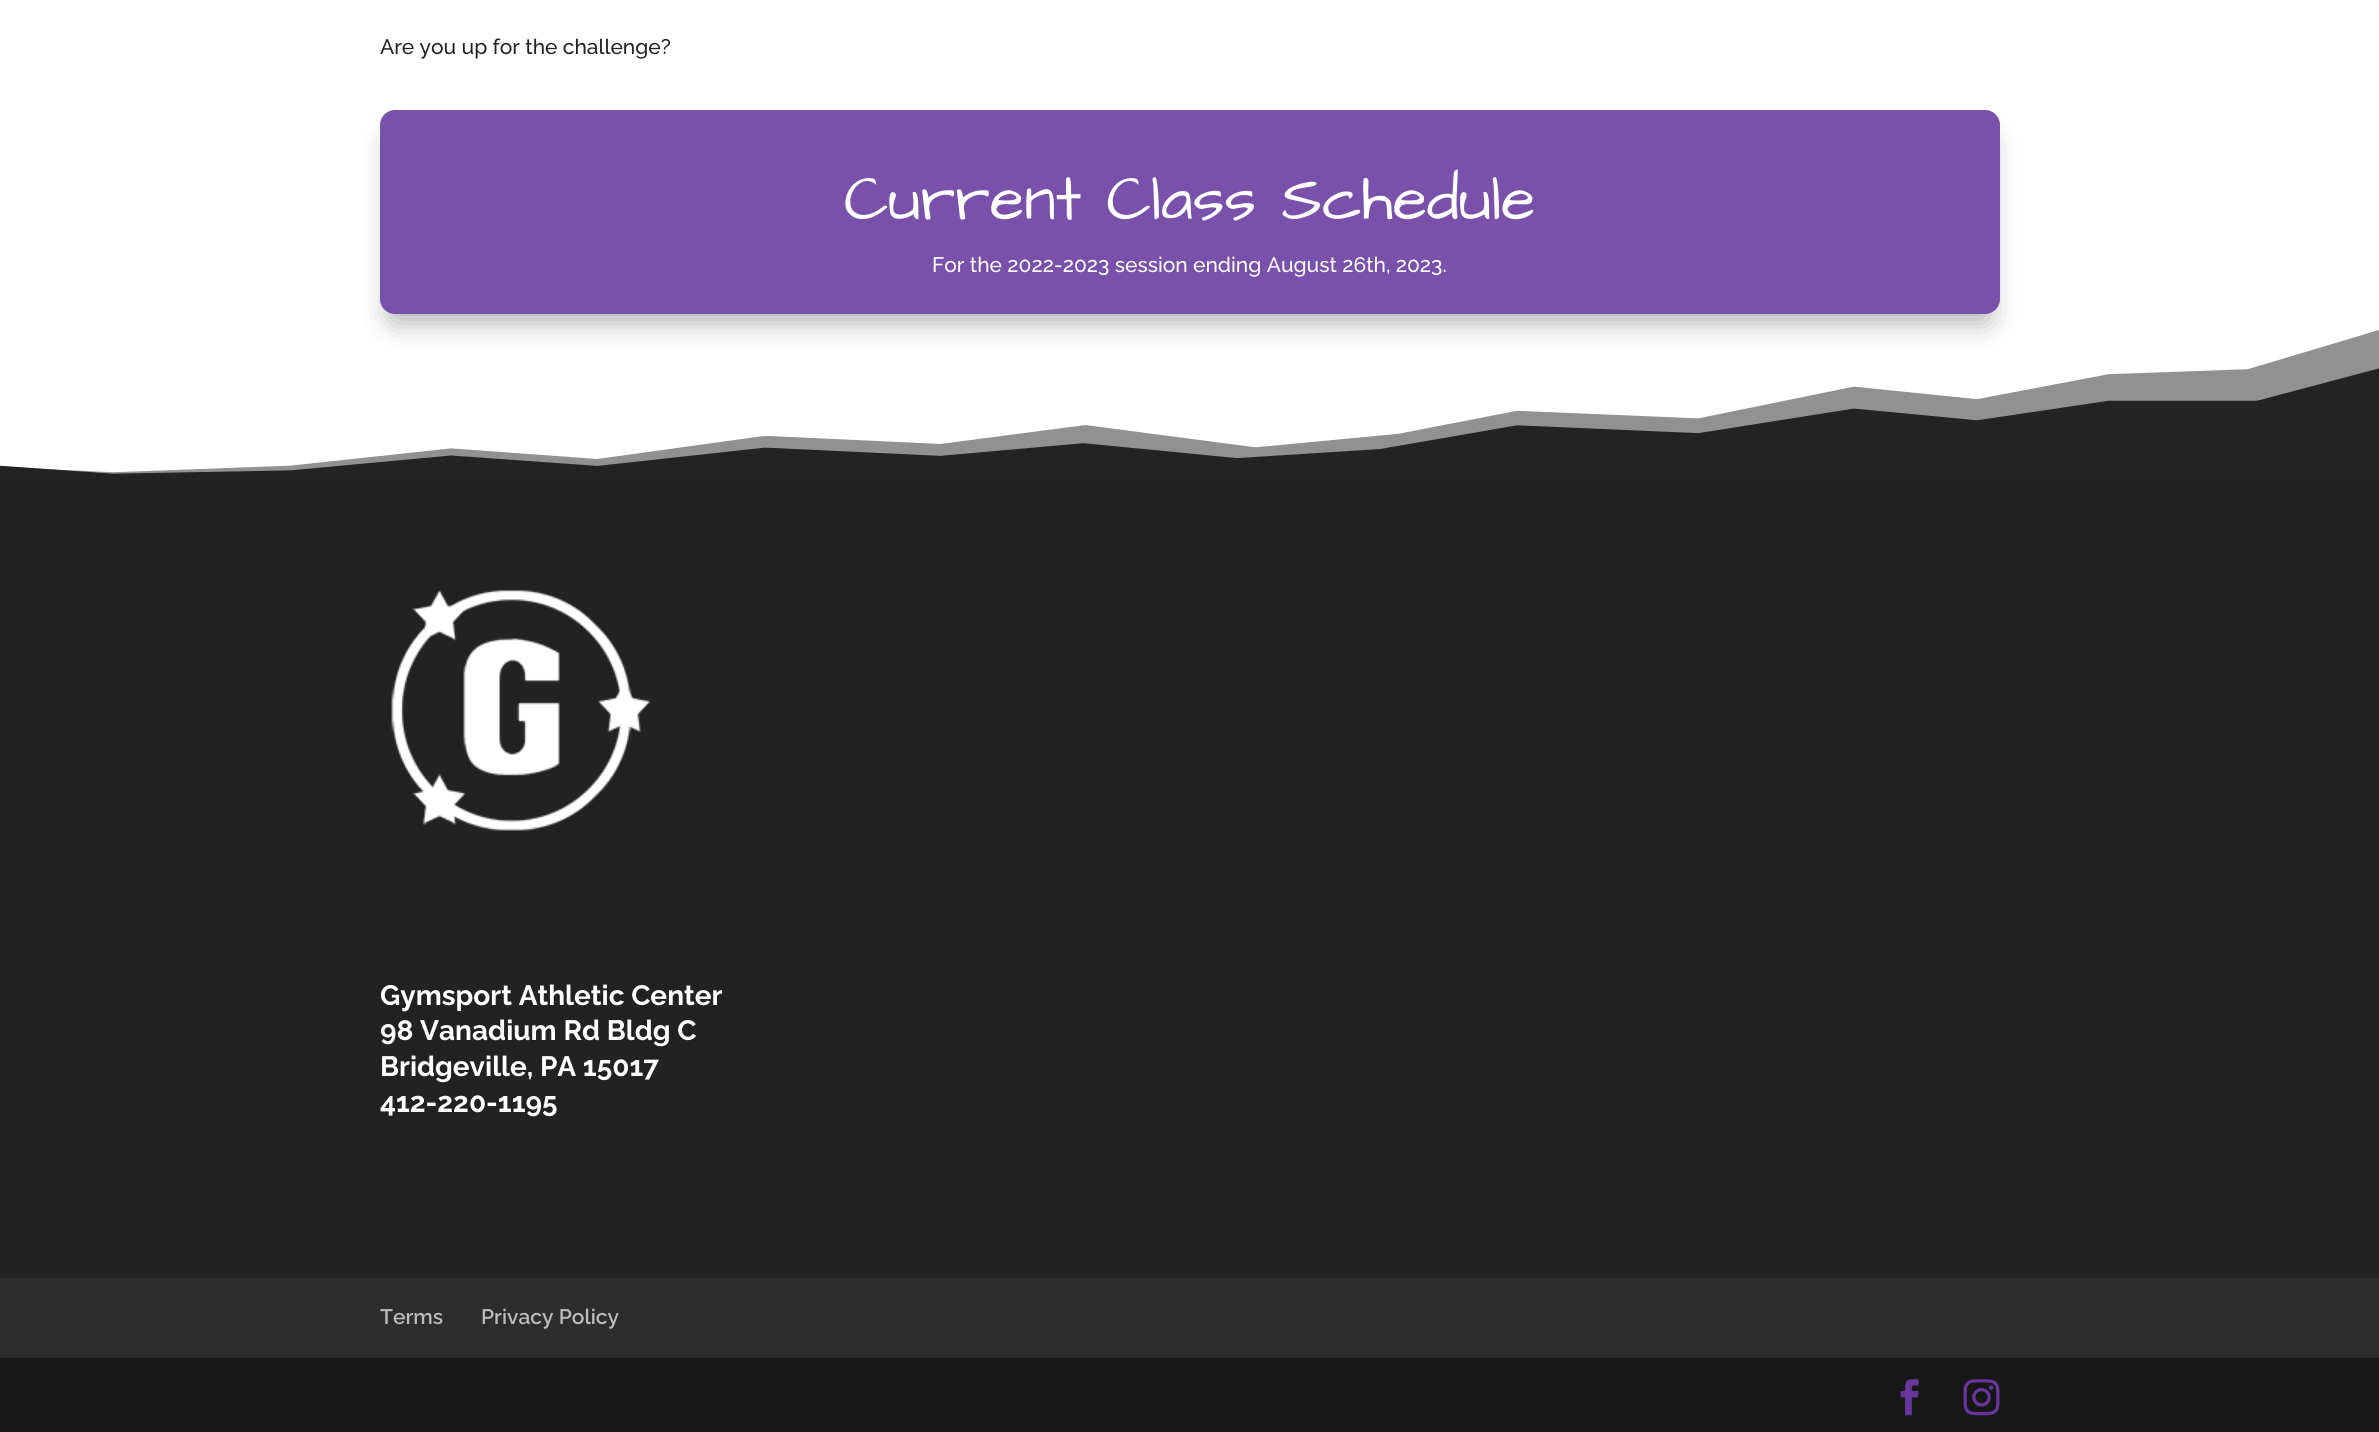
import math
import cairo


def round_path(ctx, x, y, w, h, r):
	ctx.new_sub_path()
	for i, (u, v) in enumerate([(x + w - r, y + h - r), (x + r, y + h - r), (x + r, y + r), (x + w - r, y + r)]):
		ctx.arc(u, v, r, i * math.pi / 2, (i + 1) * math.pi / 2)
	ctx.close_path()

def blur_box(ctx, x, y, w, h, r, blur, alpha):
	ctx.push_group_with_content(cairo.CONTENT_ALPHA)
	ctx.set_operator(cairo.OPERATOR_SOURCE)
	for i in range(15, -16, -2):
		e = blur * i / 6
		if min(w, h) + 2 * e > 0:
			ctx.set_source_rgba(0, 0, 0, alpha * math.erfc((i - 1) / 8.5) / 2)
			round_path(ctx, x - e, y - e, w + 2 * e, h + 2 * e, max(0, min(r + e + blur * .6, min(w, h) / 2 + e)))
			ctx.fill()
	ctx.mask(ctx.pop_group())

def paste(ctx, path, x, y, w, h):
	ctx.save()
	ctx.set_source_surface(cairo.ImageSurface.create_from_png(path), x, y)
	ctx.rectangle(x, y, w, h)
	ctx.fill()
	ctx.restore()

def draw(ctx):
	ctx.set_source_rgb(0.133, 0.133, 0.133)
	ctx.paint()
	ctx.set_source_rgb(1, 1, 1)
	ctx.rectangle(0, 0, 2379, 474)
	ctx.fill()
	ctx.select_font_face('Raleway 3 Thin')
	ctx.set_font_size(21)
	ctx.set_source_rgb(0.137, 0.137, 0.137)
	ctx.move_to(380, 54)
	ctx.show_text('Are you up for the challenge?')
	paste(ctx, 'media/1.png', 0, 330, 2379, 150)
	ctx.set_source_rgb(0, 0, 0)
	blur_box(ctx, 389, 137, 1602, 186, 6, 13.5, 0.3)
	ctx.set_source_rgb(0.475, 0.318, 0.671)
	round_path(ctx, 380, 110, 1620, 204, 15)
	ctx.fill()
	ctx.select_font_face('Architects Daughter')
	ctx.set_font_size(63)
	ctx.set_source_rgb(1, 1, 1)
	ctx.move_to(844, 219)
	ctx.show_text('Current Class Schedule')
	ctx.select_font_face('Raleway 3 Thin')
	ctx.set_font_size(21)
	ctx.move_to(932, 272)
	ctx.show_text('For the 2022-2023 session ending August 26th, 2023.')
	paste(ctx, 'media/2.png', 391, 590, 259, 241)
	ctx.select_font_face('Raleway Thin')
	ctx.set_font_size(28)
	for x, y, s in [
		(380, 1005, 'Gymsport Athletic Center'),
		(380, 1040, '98 Vanadium Rd Bldg C'),
		(380, 1076, 'Bridgeville, PA 15017'),
		(380, 1112, '412-220-1195'),
	]:
		ctx.move_to(x, y)
		ctx.show_text(s)
	ctx.set_source_rgb(0.176, 0.176, 0.176)
	ctx.rectangle(0, 1278, 2379, 80)
	ctx.fill()
	ctx.select_font_face('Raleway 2 Thin')
	ctx.set_font_size(21)
	ctx.set_source_rgb(0.733, 0.733, 0.733)
	ctx.move_to(380, 1324)
	ctx.show_text('Terms')
	ctx.move_to(481, 1324)
	ctx.show_text('Privacy Policy')
	ctx.set_source_rgb(0.09, 0.09, 0.09)
	ctx.rectangle(0, 1358, 2379, 74)
	ctx.fill()
	paste(ctx, 'media/3.png', 1900, 1379, 19, 37)
	paste(ctx, 'media/4.png', 1963, 1379, 37, 37)


surface = cairo.ImageSurface(cairo.FORMAT_RGB24, 2379, 1432)
ctx = cairo.Context(surface)
options = cairo.FontOptions()
options.set_hint_metrics(cairo.HINT_METRICS_OFF)
options.set_hint_style(cairo.HINT_STYLE_NONE)
ctx.set_font_options(options)
ctx.set_miter_limit(4)
draw(ctx)
surface.write_to_png('image.png')
